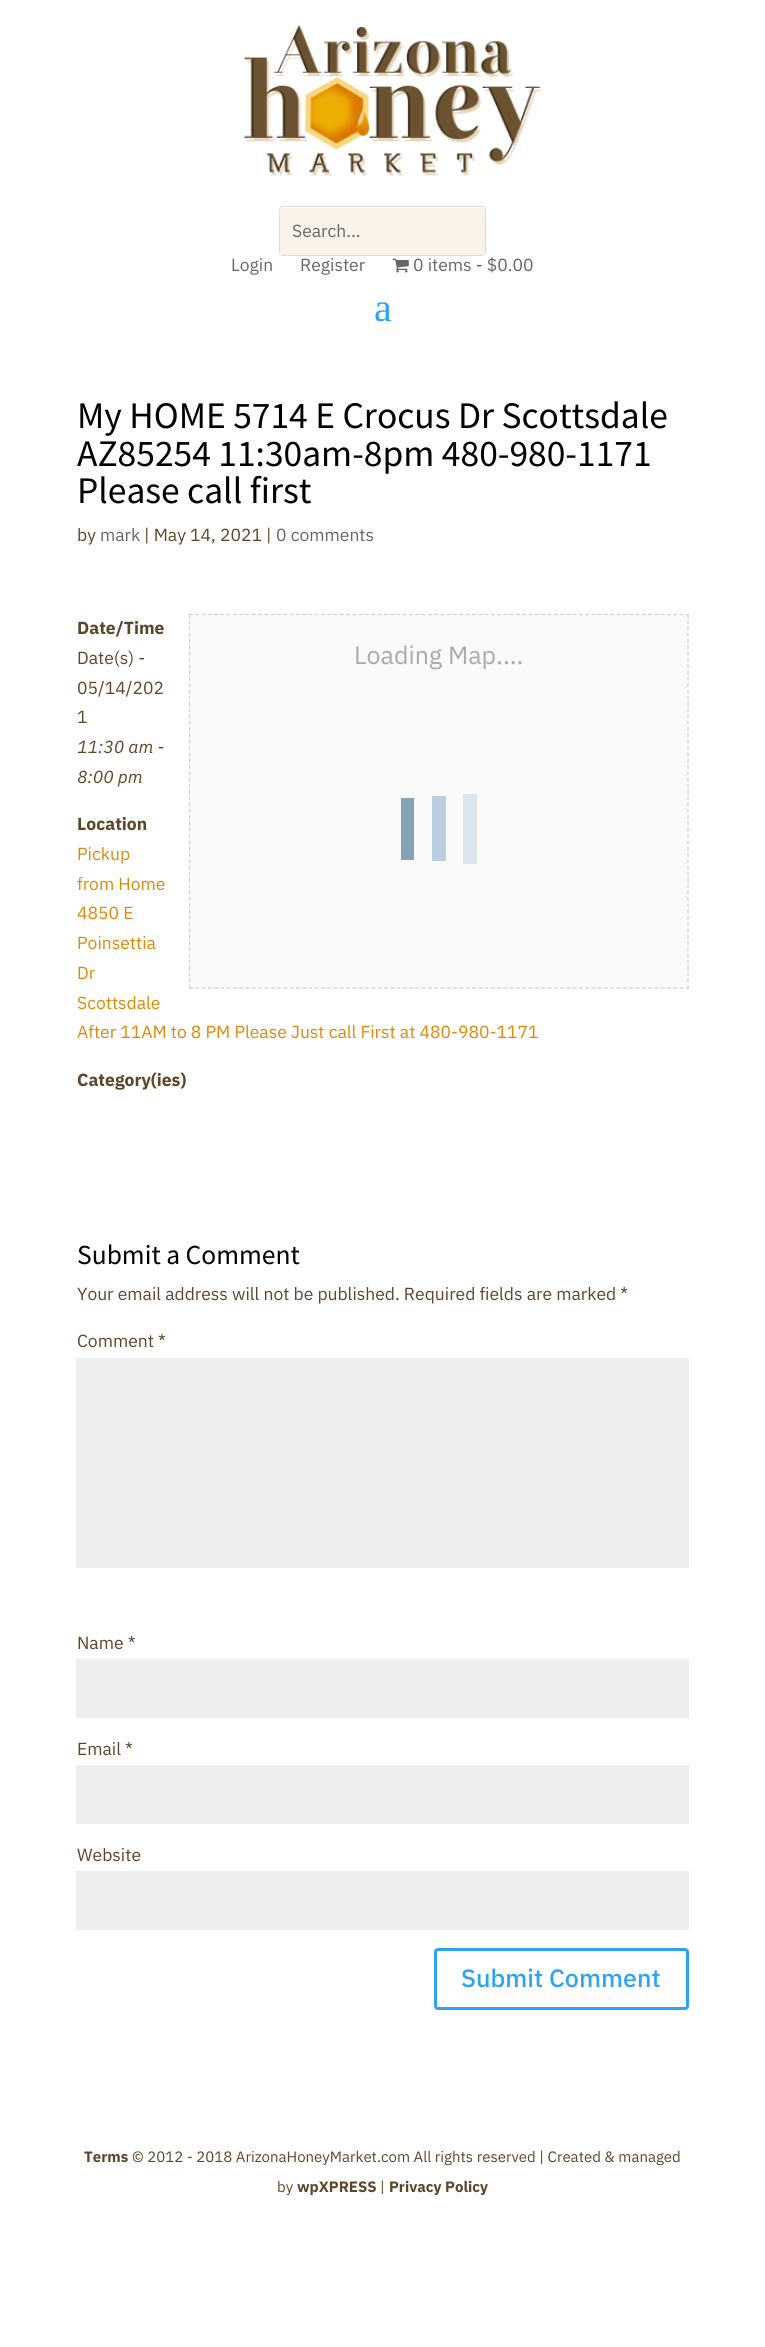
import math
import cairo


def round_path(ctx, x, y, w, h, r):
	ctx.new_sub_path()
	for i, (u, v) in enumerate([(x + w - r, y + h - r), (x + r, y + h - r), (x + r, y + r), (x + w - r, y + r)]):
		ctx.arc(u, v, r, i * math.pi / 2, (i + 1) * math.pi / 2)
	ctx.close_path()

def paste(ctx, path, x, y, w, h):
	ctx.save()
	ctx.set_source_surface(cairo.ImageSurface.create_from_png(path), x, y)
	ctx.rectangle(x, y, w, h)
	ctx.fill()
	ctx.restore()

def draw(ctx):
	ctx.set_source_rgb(1, 1, 1)
	ctx.paint()
	paste(ctx, 'media/1.png', 244, 25, 299, 151)
	round_path(ctx, 279.5, 206.5, 206, 49, 3.5)
	ctx.set_source_rgb(0.867, 0.867, 0.867)
	ctx.set_line_width(1)
	ctx.stroke()
	ctx.set_source_rgb(0.98, 0.953, 0.914)
	round_path(ctx, 280, 208, 205, 47, 2.5)
	ctx.fill()
	ctx.select_font_face('IBM Plex Sans')
	ctx.set_font_size(17.5)
	ctx.set_source_rgb(0.4, 0.4, 0.4)
	for x, y, s in [
		(292, 237, 'Search...'),
		(231, 271, 'Login'),
		(300, 271, 'Register'),
	]:
		ctx.move_to(x, y)
		ctx.show_text(s)
	paste(ctx, 'media/2.png', 392, 258, 17, 15)
	ctx.move_to(413, 271)
	ctx.show_text('0 items - $0.00')
	ctx.select_font_face('Liberation Serif')
	ctx.set_font_size(40)
	ctx.set_source_rgb(0.18, 0.639, 0.949)
	ctx.move_to(374, 321)
	ctx.show_text('a')
	ctx.select_font_face('Source Sans Pro')
	ctx.set_font_size(37.5)
	ctx.set_source_rgb(0, 0, 0)
	for x, y, s in [
		(77, 428, 'My HOME 5714 E Crocus Dr Scottsdale'),
		(77, 466, 'AZ85254 11:30am-8pm 480-980-1171'),
		(77, 503, 'Please call first'),
	]:
		ctx.move_to(x, y)
		ctx.show_text(s)
	ctx.select_font_face('IBM Plex Sans')
	ctx.set_font_size(17.5)
	ctx.set_source_rgb(0.361, 0.271, 0.157)
	ctx.move_to(77, 541)
	ctx.show_text('by')
	ctx.set_source_rgb(0.4, 0.4, 0.4)
	ctx.move_to(100, 541)
	ctx.show_text('mark')
	ctx.set_source_rgb(0.361, 0.271, 0.157)
	ctx.move_to(144, 541)
	ctx.show_text('| May 14, 2021 |')
	ctx.set_source_rgb(0.4, 0.4, 0.4)
	ctx.move_to(276, 541)
	ctx.show_text('0 comments')
	ctx.select_font_face('IBM Plex Sans', cairo.FONT_SLANT_NORMAL, cairo.FONT_WEIGHT_BOLD)
	ctx.set_source_rgb(0.361, 0.271, 0.157)
	ctx.move_to(77, 634)
	ctx.show_text('Date/Time')
	ctx.select_font_face('IBM Plex Sans')
	for x, y, s in [
		(77, 664, 'Date(s) -'),
		(77, 694, '05/14/202'),
		(77, 723, '1'),
	]:
		ctx.move_to(x, y)
		ctx.show_text(s)
	ctx.select_font_face('IBM Plex Sans', cairo.FONT_SLANT_ITALIC)
	ctx.move_to(77, 753)
	ctx.show_text('11:30 am -')
	ctx.move_to(77, 783)
	ctx.show_text('8:00 pm')
	ctx.set_source_rgb(0.98, 0.98, 0.98)
	ctx.rectangle(189, 614, 500, 375)
	ctx.fill()
	ctx.new_path()
	ctx.move_to(189, 614.5)
	ctx.line_to(689, 614.5)
	ctx.set_source_rgb(0.816, 0.816, 0.816)
	ctx.set_line_width(1.2)
	ctx.set_dash([3.75, 2.54])
	ctx.stroke()
	ctx.new_path()
	ctx.move_to(688, 614)
	ctx.line_to(688, 989)
	ctx.stroke()
	ctx.new_path()
	ctx.move_to(189, 988)
	ctx.line_to(689, 988)
	ctx.stroke()
	ctx.new_path()
	ctx.move_to(189.5, 614)
	ctx.line_to(189.5, 989)
	ctx.stroke()
	ctx.select_font_face('IBM Plex Sans')
	ctx.set_font_size(25)
	ctx.set_source_rgb(0.667, 0.667, 0.667)
	ctx.move_to(354, 664)
	ctx.show_text('Loading Map....')
	ctx.set_source_rgb(0.522, 0.635, 0.714)
	ctx.rectangle(401, 798, 13, 62)
	ctx.fill()
	ctx.set_source_rgb(0.733, 0.808, 0.867)
	ctx.rectangle(432, 796, 14, 65)
	ctx.fill()
	ctx.set_source_rgb(0.863, 0.894, 0.922)
	ctx.rectangle(463, 794, 14, 70)
	ctx.fill()
	ctx.select_font_face('IBM Plex Sans', cairo.FONT_SLANT_NORMAL, cairo.FONT_WEIGHT_BOLD)
	ctx.set_font_size(17.5)
	ctx.set_source_rgb(0.361, 0.271, 0.157)
	ctx.move_to(77, 830)
	ctx.show_text('Location')
	ctx.select_font_face('IBM Plex Sans')
	ctx.set_source_rgb(0.878, 0.529, 0.039)
	for x, y, s in [
		(77, 860, 'Pickup'),
		(77, 890, 'from Home'),
		(77, 919, '4850 E'),
		(77, 949, 'Poinsettia'),
		(77, 979, 'Dr'),
		(77, 1009, 'Scottsdale'),
		(77, 1038, 'After 11AM to 8 PM Please Just call First at 480-980-1171'),
	]:
		ctx.move_to(x, y)
		ctx.show_text(s)
	ctx.select_font_face('IBM Plex Sans', cairo.FONT_SLANT_NORMAL, cairo.FONT_WEIGHT_BOLD)
	ctx.set_source_rgb(0.361, 0.271, 0.157)
	ctx.move_to(77, 1086)
	ctx.show_text('Category(ies)')
	ctx.select_font_face('Source Sans Pro')
	ctx.set_font_size(27.5)
	ctx.set_source_rgb(0, 0, 0)
	ctx.move_to(77, 1264)
	ctx.show_text('Submit a Comment')
	ctx.select_font_face('IBM Plex Sans')
	ctx.set_font_size(17.5)
	ctx.set_source_rgb(0.361, 0.271, 0.157)
	ctx.move_to(77, 1300)
	ctx.show_text('Your email address will not be published. Required fields are marked *')
	ctx.move_to(77, 1347)
	ctx.show_text('Comment *')
	ctx.set_source_rgb(0.933, 0.933, 0.933)
	ctx.rectangle(76, 1358, 613, 210)
	ctx.fill()
	ctx.set_source_rgb(0.361, 0.271, 0.157)
	ctx.move_to(77, 1649)
	ctx.show_text('Name *')
	ctx.set_source_rgb(0.933, 0.933, 0.933)
	ctx.rectangle(76, 1659, 613, 59)
	ctx.fill()
	ctx.set_source_rgb(0.361, 0.271, 0.157)
	ctx.move_to(77, 1755)
	ctx.show_text('Email *')
	ctx.set_source_rgb(0.933, 0.933, 0.933)
	ctx.rectangle(76, 1765, 613, 59)
	ctx.fill()
	ctx.set_source_rgb(0.361, 0.271, 0.157)
	ctx.move_to(77, 1861)
	ctx.show_text('Website')
	ctx.set_source_rgb(0.933, 0.933, 0.933)
	ctx.rectangle(76, 1871, 613, 59)
	ctx.fill()
	round_path(ctx, 435.5, 1949.5, 252, 59, 2.5)
	ctx.set_source_rgb(0.18, 0.639, 0.949)
	ctx.set_line_width(3)
	ctx.set_dash([])
	ctx.stroke()
	ctx.select_font_face('IBM Plex Sans Medium')
	ctx.set_font_size(25)
	ctx.move_to(461, 1987)
	ctx.show_text('Submit Comment')
	ctx.select_font_face('IBM Plex Sans', cairo.FONT_SLANT_NORMAL, cairo.FONT_WEIGHT_BOLD)
	ctx.set_font_size(15)
	ctx.set_source_rgb(0.361, 0.271, 0.157)
	ctx.move_to(84, 2162)
	ctx.show_text('Terms')
	ctx.select_font_face('IBM Plex Sans')
	ctx.move_to(132, 2162)
	ctx.show_text('© 2012 - 2018 ArizonaHoneyMarket.com All rights reserved | Created & managed')
	ctx.move_to(277, 2192)
	ctx.show_text('by')
	ctx.select_font_face('IBM Plex Sans', cairo.FONT_SLANT_NORMAL, cairo.FONT_WEIGHT_BOLD)
	ctx.move_to(297, 2192)
	ctx.show_text('wpXPRESS')
	ctx.select_font_face('IBM Plex Sans')
	ctx.move_to(380, 2192)
	ctx.show_text('|')
	ctx.select_font_face('IBM Plex Sans', cairo.FONT_SLANT_NORMAL, cairo.FONT_WEIGHT_BOLD)
	ctx.move_to(389, 2192)
	ctx.show_text('Privacy Policy')


surface = cairo.ImageSurface(cairo.FORMAT_RGB24, 765, 2347)
ctx = cairo.Context(surface)
options = cairo.FontOptions()
options.set_hint_metrics(cairo.HINT_METRICS_OFF)
options.set_hint_style(cairo.HINT_STYLE_NONE)
ctx.set_font_options(options)
ctx.set_miter_limit(4)
draw(ctx)
surface.write_to_png('image.png')
